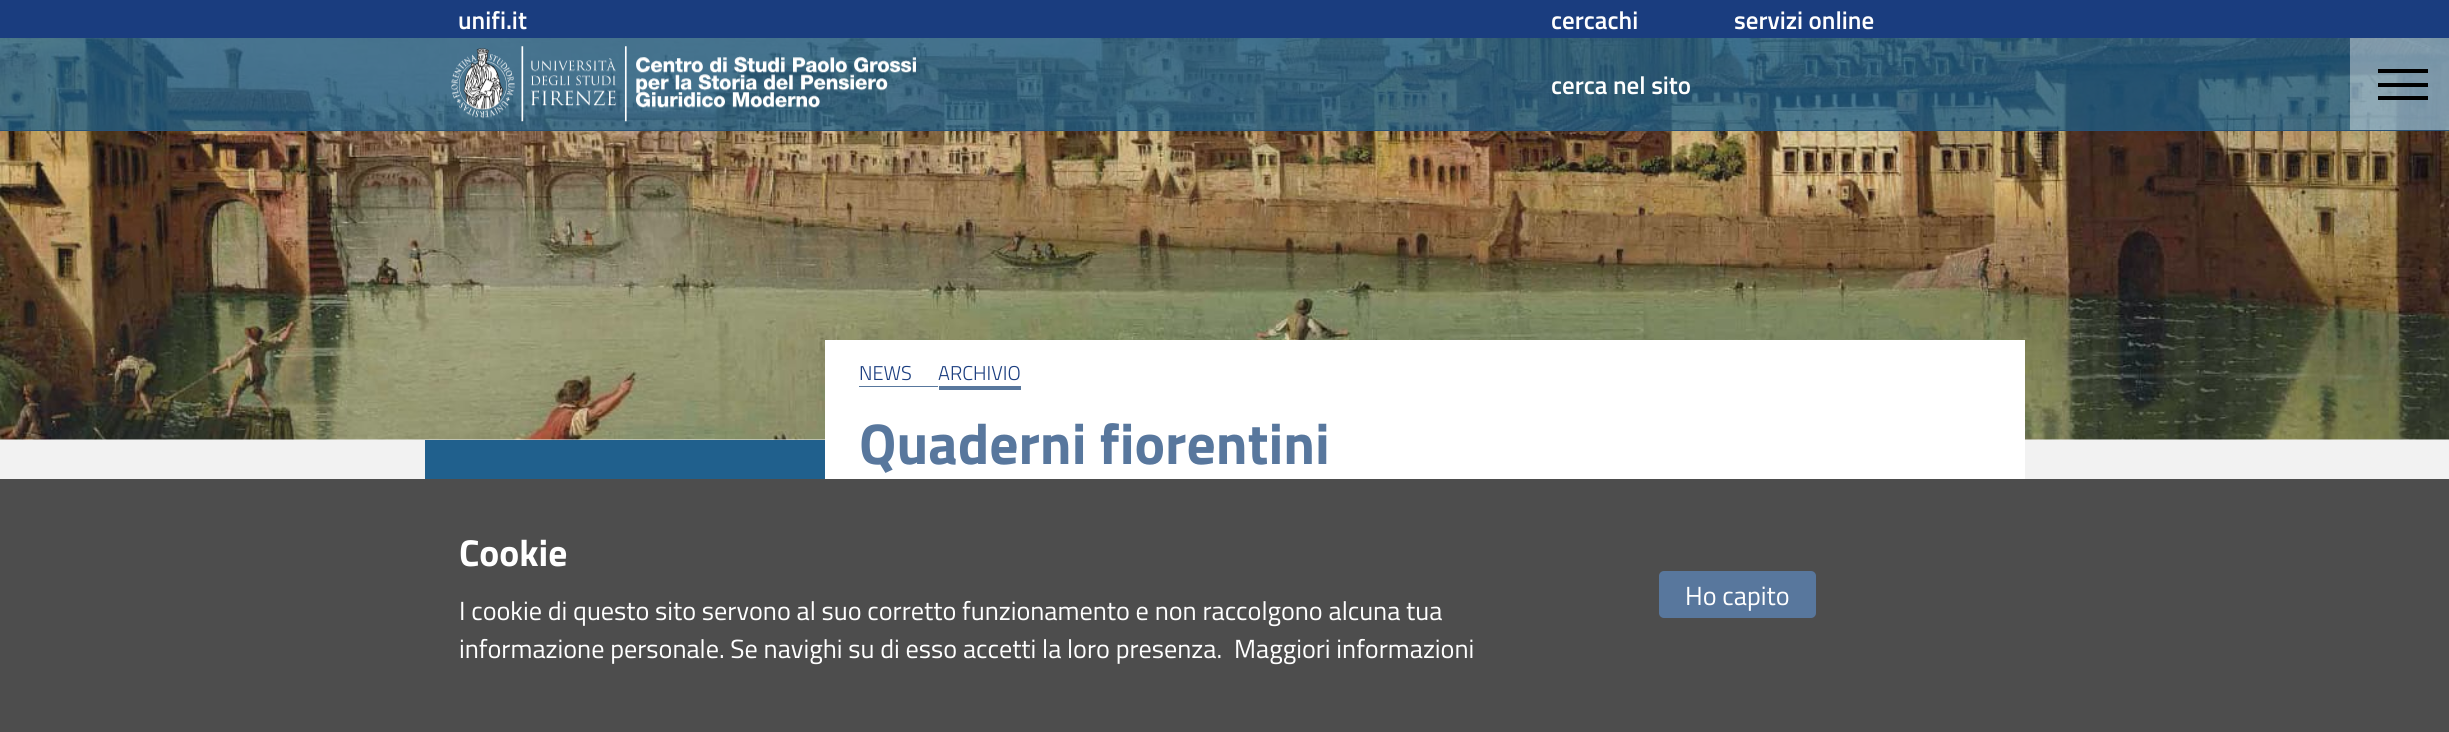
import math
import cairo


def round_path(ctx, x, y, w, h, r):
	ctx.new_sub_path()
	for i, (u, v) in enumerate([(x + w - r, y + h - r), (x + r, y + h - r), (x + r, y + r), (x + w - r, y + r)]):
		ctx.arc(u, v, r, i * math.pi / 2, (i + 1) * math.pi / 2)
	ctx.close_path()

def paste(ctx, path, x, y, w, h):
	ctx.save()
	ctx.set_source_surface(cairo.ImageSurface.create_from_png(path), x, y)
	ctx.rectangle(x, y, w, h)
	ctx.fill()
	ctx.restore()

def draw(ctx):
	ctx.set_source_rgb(0.949, 0.949, 0.949)
	ctx.paint()
	paste(ctx, 'media/2.png', 0, 38, 2449, 402)
	ctx.set_source_rgba(0.11, 0.373, 0.537, 0.75)
	ctx.rectangle(0, 38, 2449, 92)
	ctx.fill()
	ctx.set_source_rgb(0.157, 0.322, 0.467)
	ctx.rectangle(0, 130, 2449, 1)
	ctx.fill()
	ctx.set_source_rgb(0.102, 0.239, 0.498)
	ctx.rectangle(0, 0, 2449, 38)
	ctx.fill()
	ctx.select_font_face('Titillium Web SemiBold')
	ctx.set_font_size(25)
	ctx.set_source_rgb(1, 1, 1)
	for x, y, s in [
		(458, 29, 'unifi.it'),
		(1551, 29, 'cercachi'),
		(1734, 29, 'servizi online'),
	]:
		ctx.move_to(x, y)
		ctx.show_text(s)
	paste(ctx, 'media/1.png', 451, 46, 465, 76)
	ctx.move_to(1551, 94)
	ctx.show_text('cerca nel sito')
	ctx.set_source_rgba(1, 1, 1, 0.4)
	ctx.rectangle(2350, 38, 99, 92)
	ctx.fill()
	ctx.set_source_rgb(0, 0, 0)
	ctx.rectangle(2378, 69, 50, 4)
	ctx.rectangle(2378, 83, 50, 4)
	ctx.rectangle(2378, 96, 50, 4)
	ctx.fill()
	ctx.set_source_rgb(0.125, 0.376, 0.553)
	ctx.rectangle(425, 440, 400, 39)
	ctx.fill()
	ctx.set_source_rgb(1, 1, 1)
	ctx.rectangle(825, 340, 1200, 139)
	ctx.fill()
	ctx.select_font_face('Titillium Web Light')
	ctx.set_font_size(20)
	ctx.set_source_rgb(0.102, 0.239, 0.498)
	ctx.move_to(859, 380)
	ctx.show_text('NEWS')
	ctx.set_source_rgb(0.345, 0.467, 0.616)
	ctx.rectangle(859, 386, 79, 1)
	ctx.fill()
	ctx.set_source_rgb(0.102, 0.239, 0.498)
	ctx.move_to(938, 380)
	ctx.show_text('ARCHIVIO')
	ctx.set_source_rgb(0.345, 0.467, 0.616)
	ctx.rectangle(939, 386, 82, 4)
	ctx.fill()
	ctx.select_font_face('Titillium Web', cairo.FONT_SLANT_NORMAL, cairo.FONT_WEIGHT_BOLD)
	ctx.set_font_size(57.5)
	ctx.move_to(859, 464)
	ctx.show_text('Quaderni fiorentini')
	ctx.set_source_rgb(0.302, 0.302, 0.302)
	ctx.rectangle(0, 479, 2449, 253)
	ctx.fill()
	ctx.set_font_size(37.5)
	ctx.set_source_rgb(1, 1, 1)
	ctx.move_to(459, 566)
	ctx.show_text('Cookie')
	ctx.select_font_face('Titillium Web')
	ctx.set_font_size(26.25)
	for x, y, s in [
		(459, 620, 'I cookie di questo sito servono al suo corretto funzionamento e non raccolgono alcuna tua'),
		(459, 658, 'informazione personale. Se navighi su di esso accetti la loro presenza.'),
		(1234, 658, 'Maggiori informazioni'),
	]:
		ctx.move_to(x, y)
		ctx.show_text(s)
	ctx.set_source_rgb(0.345, 0.467, 0.616)
	round_path(ctx, 1659, 571, 157, 47, 5)
	ctx.fill()
	ctx.set_source_rgb(1, 1, 1)
	ctx.move_to(1685, 605)
	ctx.show_text('Ho capito')


surface = cairo.ImageSurface(cairo.FORMAT_RGB24, 2449, 732)
ctx = cairo.Context(surface)
options = cairo.FontOptions()
options.set_hint_metrics(cairo.HINT_METRICS_OFF)
options.set_hint_style(cairo.HINT_STYLE_NONE)
ctx.set_font_options(options)
ctx.set_miter_limit(4)
draw(ctx)
surface.write_to_png('image.png')
